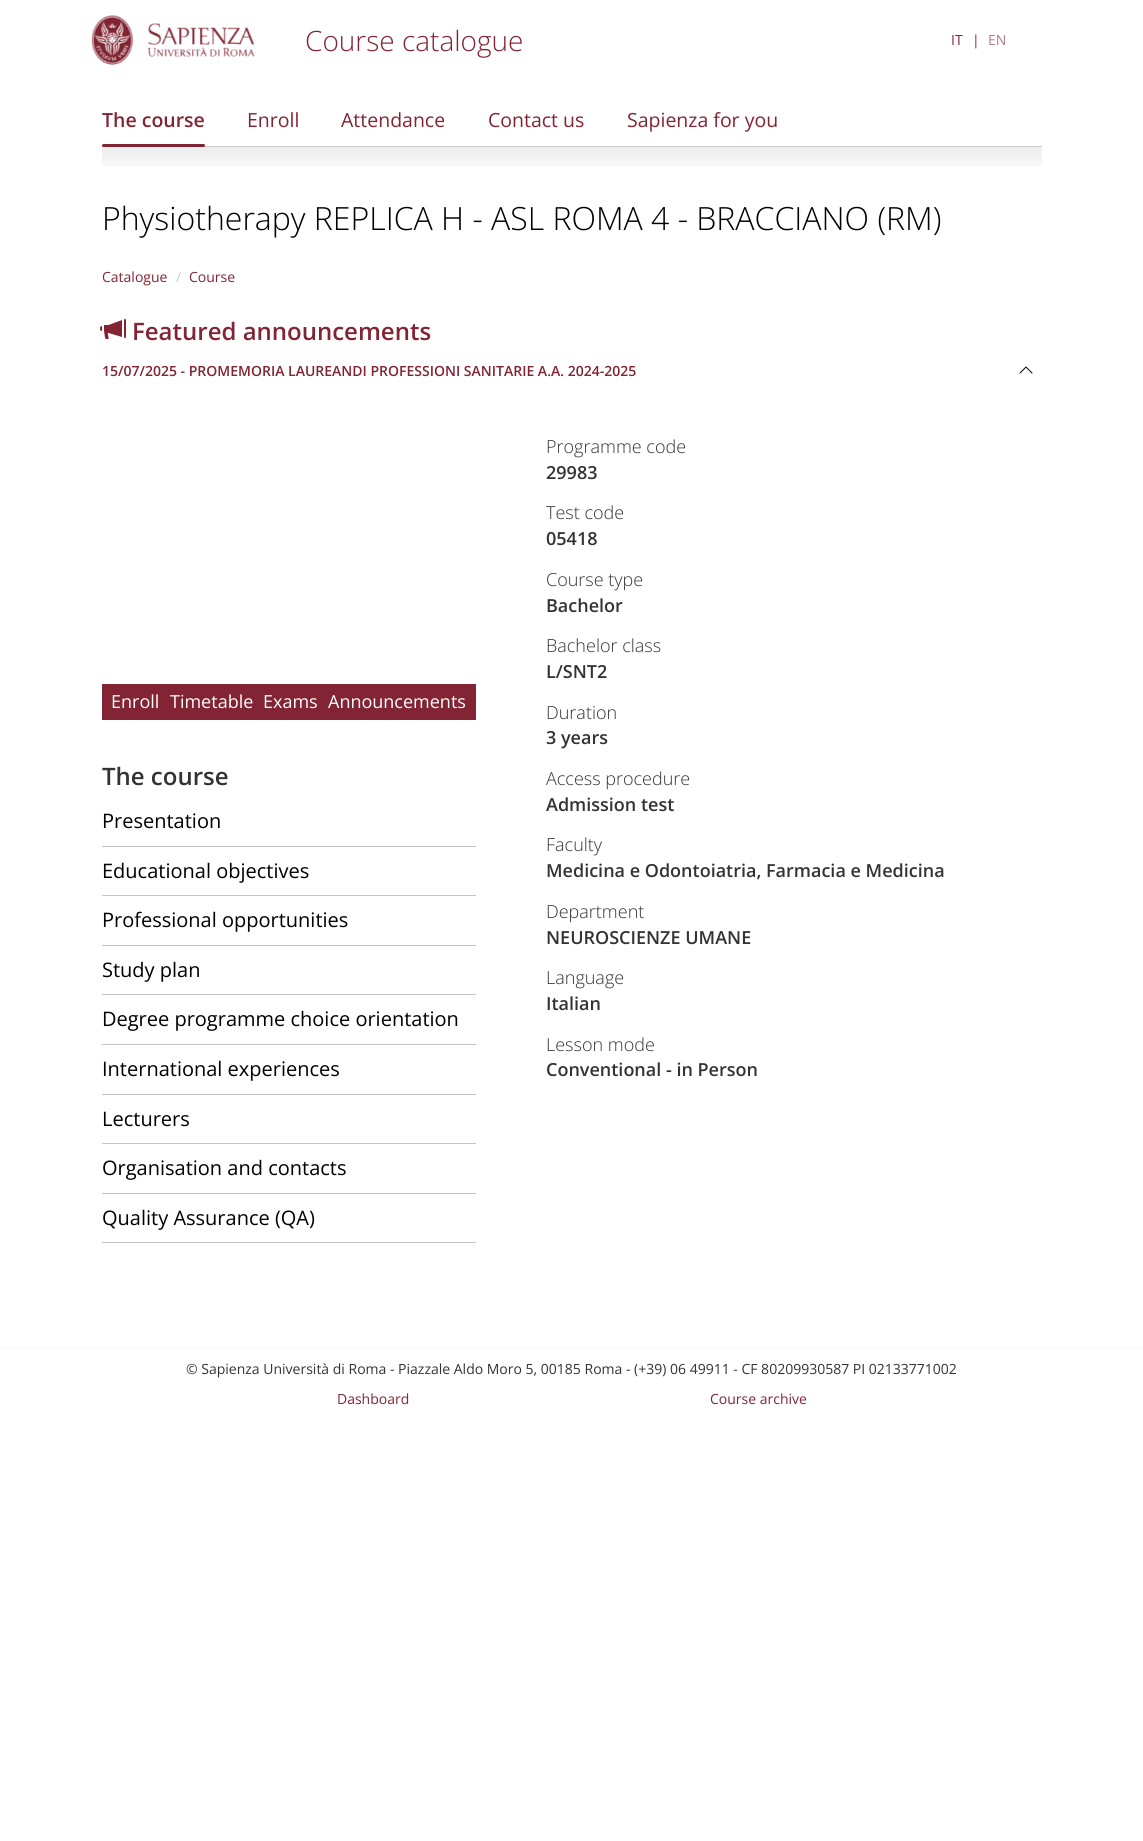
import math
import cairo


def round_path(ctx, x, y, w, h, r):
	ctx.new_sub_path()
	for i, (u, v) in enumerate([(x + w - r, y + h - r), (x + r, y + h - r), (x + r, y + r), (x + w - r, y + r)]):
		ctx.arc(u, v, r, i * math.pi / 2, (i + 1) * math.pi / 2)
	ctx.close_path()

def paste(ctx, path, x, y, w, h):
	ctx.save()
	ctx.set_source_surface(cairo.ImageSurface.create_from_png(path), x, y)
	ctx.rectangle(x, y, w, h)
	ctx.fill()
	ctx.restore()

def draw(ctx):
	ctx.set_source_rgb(1, 1, 1)
	ctx.paint()
	paste(ctx, 'media/1.png', 91, 15, 164, 50)
	ctx.select_font_face('Open Sans Light')
	ctx.set_font_size(28)
	ctx.set_source_rgb(0.51, 0.141, 0.2)
	ctx.move_to(305, 51)
	ctx.show_text('Course catalogue')
	ctx.select_font_face('Open Sans')
	ctx.set_font_size(14)
	ctx.move_to(951, 45)
	ctx.show_text('IT')
	ctx.move_to(972, 45)
	ctx.show_text('|')
	ctx.set_source_rgb(0.706, 0.486, 0.522)
	ctx.move_to(988, 45)
	ctx.show_text('EN')
	ctx.set_source_rgb(0.867, 0.867, 0.867)
	ctx.rectangle(102, 146, 940, 1)
	ctx.fill()
	ctx.select_font_face('Open Sans SemiBold')
	ctx.set_font_size(19.5)
	ctx.set_source_rgb(0.51, 0.141, 0.2)
	ctx.move_to(102, 127)
	ctx.show_text('The course')
	round_path(ctx, 102, 144, 103, 3, 1.5)
	ctx.fill()
	ctx.select_font_face('Open Sans')
	for x, y, s in [
		(247, 127, 'Enroll'),
		(341, 127, 'Attendance'),
		(488, 127, 'Contact us'),
		(627, 127, 'Sapienza for you'),
	]:
		ctx.move_to(x, y)
		ctx.show_text(s)
	gradient = cairo.LinearGradient(572, 146, 572, 174)
	gradient.add_color_stop_rgba(0, 0, 0, 0, 0.08)
	gradient.add_color_stop_rgba(1, 0, 0, 0, 0)
	ctx.set_source(gradient)
	ctx.rectangle(102, 146, 940, 20)
	ctx.fill()
	ctx.select_font_face('Open Sans Light')
	ctx.set_font_size(32)
	ctx.set_source_rgb(0, 0, 0)
	ctx.move_to(102, 230)
	ctx.show_text('Physiotherapy REPLICA H - ASL ROMA 4 - BRACCIANO (RM)')
	ctx.select_font_face('Open Sans')
	ctx.set_font_size(14)
	ctx.set_source_rgb(0.51, 0.141, 0.2)
	ctx.move_to(102, 282)
	ctx.show_text('Catalogue')
	ctx.set_source_rgb(0.8, 0.8, 0.8)
	ctx.move_to(176, 282)
	ctx.show_text('/')
	ctx.set_source_rgb(0.51, 0.141, 0.2)
	ctx.move_to(189, 282)
	ctx.show_text('Course')
	paste(ctx, 'media/2.png', 100, 319, 26, 20)
	ctx.select_font_face('Open Sans SemiBold')
	ctx.set_font_size(24)
	ctx.move_to(132, 340)
	ctx.show_text('Featured announcements')
	ctx.set_font_size(14)
	ctx.move_to(102, 376)
	ctx.show_text('15/07/2025 - PROMEMORIA LAUREANDI PROFESSIONI SANITARIE A.A. 2024-2025')
	paste(ctx, 'media/3.png', 1019, 366, 14, 8)
	ctx.rectangle(102, 684, 374, 36)
	ctx.fill()
	ctx.select_font_face('Open Sans')
	ctx.set_font_size(18)
	ctx.set_source_rgb(1, 1, 1)
	for x, y, s in [
		(111, 708, 'Enroll'),
		(170, 708, 'Timetable'),
		(263, 708, 'Exams'),
		(328, 708, 'Announcements'),
	]:
		ctx.move_to(x, y)
		ctx.show_text(s)
	ctx.select_font_face('Open Sans SemiBold')
	ctx.set_font_size(24)
	ctx.set_source_rgb(0.2, 0.2, 0.2)
	ctx.move_to(102, 785)
	ctx.show_text('The course')
	ctx.set_source_rgb(0.773, 0.773, 0.773)
	ctx.rectangle(102, 846, 374, 1)
	ctx.fill()
	ctx.select_font_face('Open Sans')
	ctx.set_font_size(20)
	ctx.set_source_rgb(0, 0, 0)
	ctx.move_to(102, 828)
	ctx.show_text('Presentation')
	ctx.set_source_rgb(0.773, 0.773, 0.773)
	ctx.rectangle(102, 895, 374, 1)
	ctx.fill()
	ctx.set_source_rgb(0, 0, 0)
	ctx.move_to(102, 878)
	ctx.show_text('Educational objectives')
	ctx.set_source_rgb(0.773, 0.773, 0.773)
	ctx.rectangle(102, 945, 374, 1)
	ctx.fill()
	ctx.set_source_rgb(0, 0, 0)
	ctx.move_to(102, 927)
	ctx.show_text('Professional opportunities')
	ctx.set_source_rgb(0.773, 0.773, 0.773)
	ctx.rectangle(102, 994, 374, 1)
	ctx.fill()
	ctx.set_source_rgb(0, 0, 0)
	ctx.move_to(102, 977)
	ctx.show_text('Study plan')
	ctx.set_source_rgb(0.773, 0.773, 0.773)
	ctx.rectangle(102, 1044, 374, 1)
	ctx.fill()
	ctx.set_source_rgb(0, 0, 0)
	ctx.move_to(102, 1026)
	ctx.show_text('Degree programme choice orientation')
	ctx.set_source_rgb(0.773, 0.773, 0.773)
	ctx.rectangle(102, 1094, 374, 1)
	ctx.fill()
	ctx.set_source_rgb(0, 0, 0)
	ctx.move_to(102, 1076)
	ctx.show_text('International experiences')
	ctx.set_source_rgb(0.773, 0.773, 0.773)
	ctx.rectangle(102, 1143, 374, 1)
	ctx.fill()
	ctx.set_source_rgb(0, 0, 0)
	ctx.move_to(102, 1126)
	ctx.show_text('Lecturers')
	ctx.set_source_rgb(0.773, 0.773, 0.773)
	ctx.rectangle(102, 1193, 374, 1)
	ctx.fill()
	ctx.set_source_rgb(0, 0, 0)
	ctx.move_to(102, 1175)
	ctx.show_text('Organisation and contacts')
	ctx.set_source_rgb(0.773, 0.773, 0.773)
	ctx.rectangle(102, 1242, 374, 1)
	ctx.fill()
	ctx.set_source_rgb(0, 0, 0)
	ctx.move_to(102, 1225)
	ctx.show_text('Quality Assurance (QA)')
	ctx.select_font_face('Open Sans Light')
	ctx.set_font_size(18)
	ctx.set_source_rgb(0.2, 0.2, 0.2)
	ctx.move_to(546, 453)
	ctx.show_text('Programme code')
	ctx.select_font_face('Open Sans SemiBold')
	ctx.move_to(546, 479)
	ctx.show_text('29983')
	ctx.select_font_face('Open Sans Light')
	ctx.move_to(546, 519)
	ctx.show_text('Test code')
	ctx.select_font_face('Open Sans SemiBold')
	ctx.move_to(546, 545)
	ctx.show_text('05418')
	ctx.select_font_face('Open Sans Light')
	ctx.move_to(546, 586)
	ctx.show_text('Course type')
	ctx.select_font_face('Open Sans SemiBold')
	ctx.move_to(546, 612)
	ctx.show_text('Bachelor')
	ctx.select_font_face('Open Sans Light')
	ctx.move_to(546, 652)
	ctx.show_text('Bachelor class')
	ctx.select_font_face('Open Sans SemiBold')
	ctx.move_to(546, 678)
	ctx.show_text('L/SNT2')
	ctx.select_font_face('Open Sans Light')
	ctx.move_to(546, 719)
	ctx.show_text('Duration')
	ctx.select_font_face('Open Sans SemiBold')
	ctx.move_to(546, 744)
	ctx.show_text('3 years')
	ctx.select_font_face('Open Sans Light')
	ctx.move_to(546, 785)
	ctx.show_text('Access procedure')
	ctx.select_font_face('Open Sans SemiBold')
	ctx.move_to(546, 811)
	ctx.show_text('Admission test')
	ctx.select_font_face('Open Sans Light')
	ctx.move_to(546, 851)
	ctx.show_text('Faculty')
	ctx.select_font_face('Open Sans SemiBold')
	ctx.move_to(546, 877)
	ctx.show_text('Medicina e Odontoiatria, Farmacia e Medicina')
	ctx.select_font_face('Open Sans Light')
	ctx.move_to(546, 918)
	ctx.show_text('Department')
	ctx.select_font_face('Open Sans SemiBold')
	ctx.move_to(546, 944)
	ctx.show_text('NEUROSCIENZE UMANE')
	ctx.select_font_face('Open Sans Light')
	ctx.move_to(546, 984)
	ctx.show_text('Language')
	ctx.select_font_face('Open Sans SemiBold')
	ctx.move_to(546, 1010)
	ctx.show_text('Italian')
	ctx.select_font_face('Open Sans Light')
	ctx.move_to(546, 1051)
	ctx.show_text('Lesson mode')
	ctx.select_font_face('Open Sans SemiBold')
	ctx.move_to(546, 1076)
	ctx.show_text('Conventional - in Person')
	ctx.set_source_rgb(0.965, 0.965, 0.965)
	ctx.rectangle(0, 1348, 1143, 1)
	ctx.fill()
	ctx.select_font_face('Open Sans')
	ctx.set_font_size(14)
	ctx.set_source_rgb(0.2, 0.2, 0.2)
	ctx.move_to(186, 1374)
	ctx.show_text('© Sapienza Università di Roma - Piazzale Aldo Moro 5, 00185 Roma - (+39) 06 49911 - CF 80209930587 PI 02133771002')
	ctx.set_source_rgb(0.51, 0.141, 0.2)
	ctx.move_to(337, 1404)
	ctx.show_text('Dashboard')
	ctx.move_to(710, 1404)
	ctx.show_text('Course archive')


surface = cairo.ImageSurface(cairo.FORMAT_RGB24, 1143, 1841)
ctx = cairo.Context(surface)
options = cairo.FontOptions()
options.set_hint_metrics(cairo.HINT_METRICS_OFF)
options.set_hint_style(cairo.HINT_STYLE_NONE)
ctx.set_font_options(options)
ctx.set_miter_limit(4)
draw(ctx)
surface.write_to_png('image.png')
